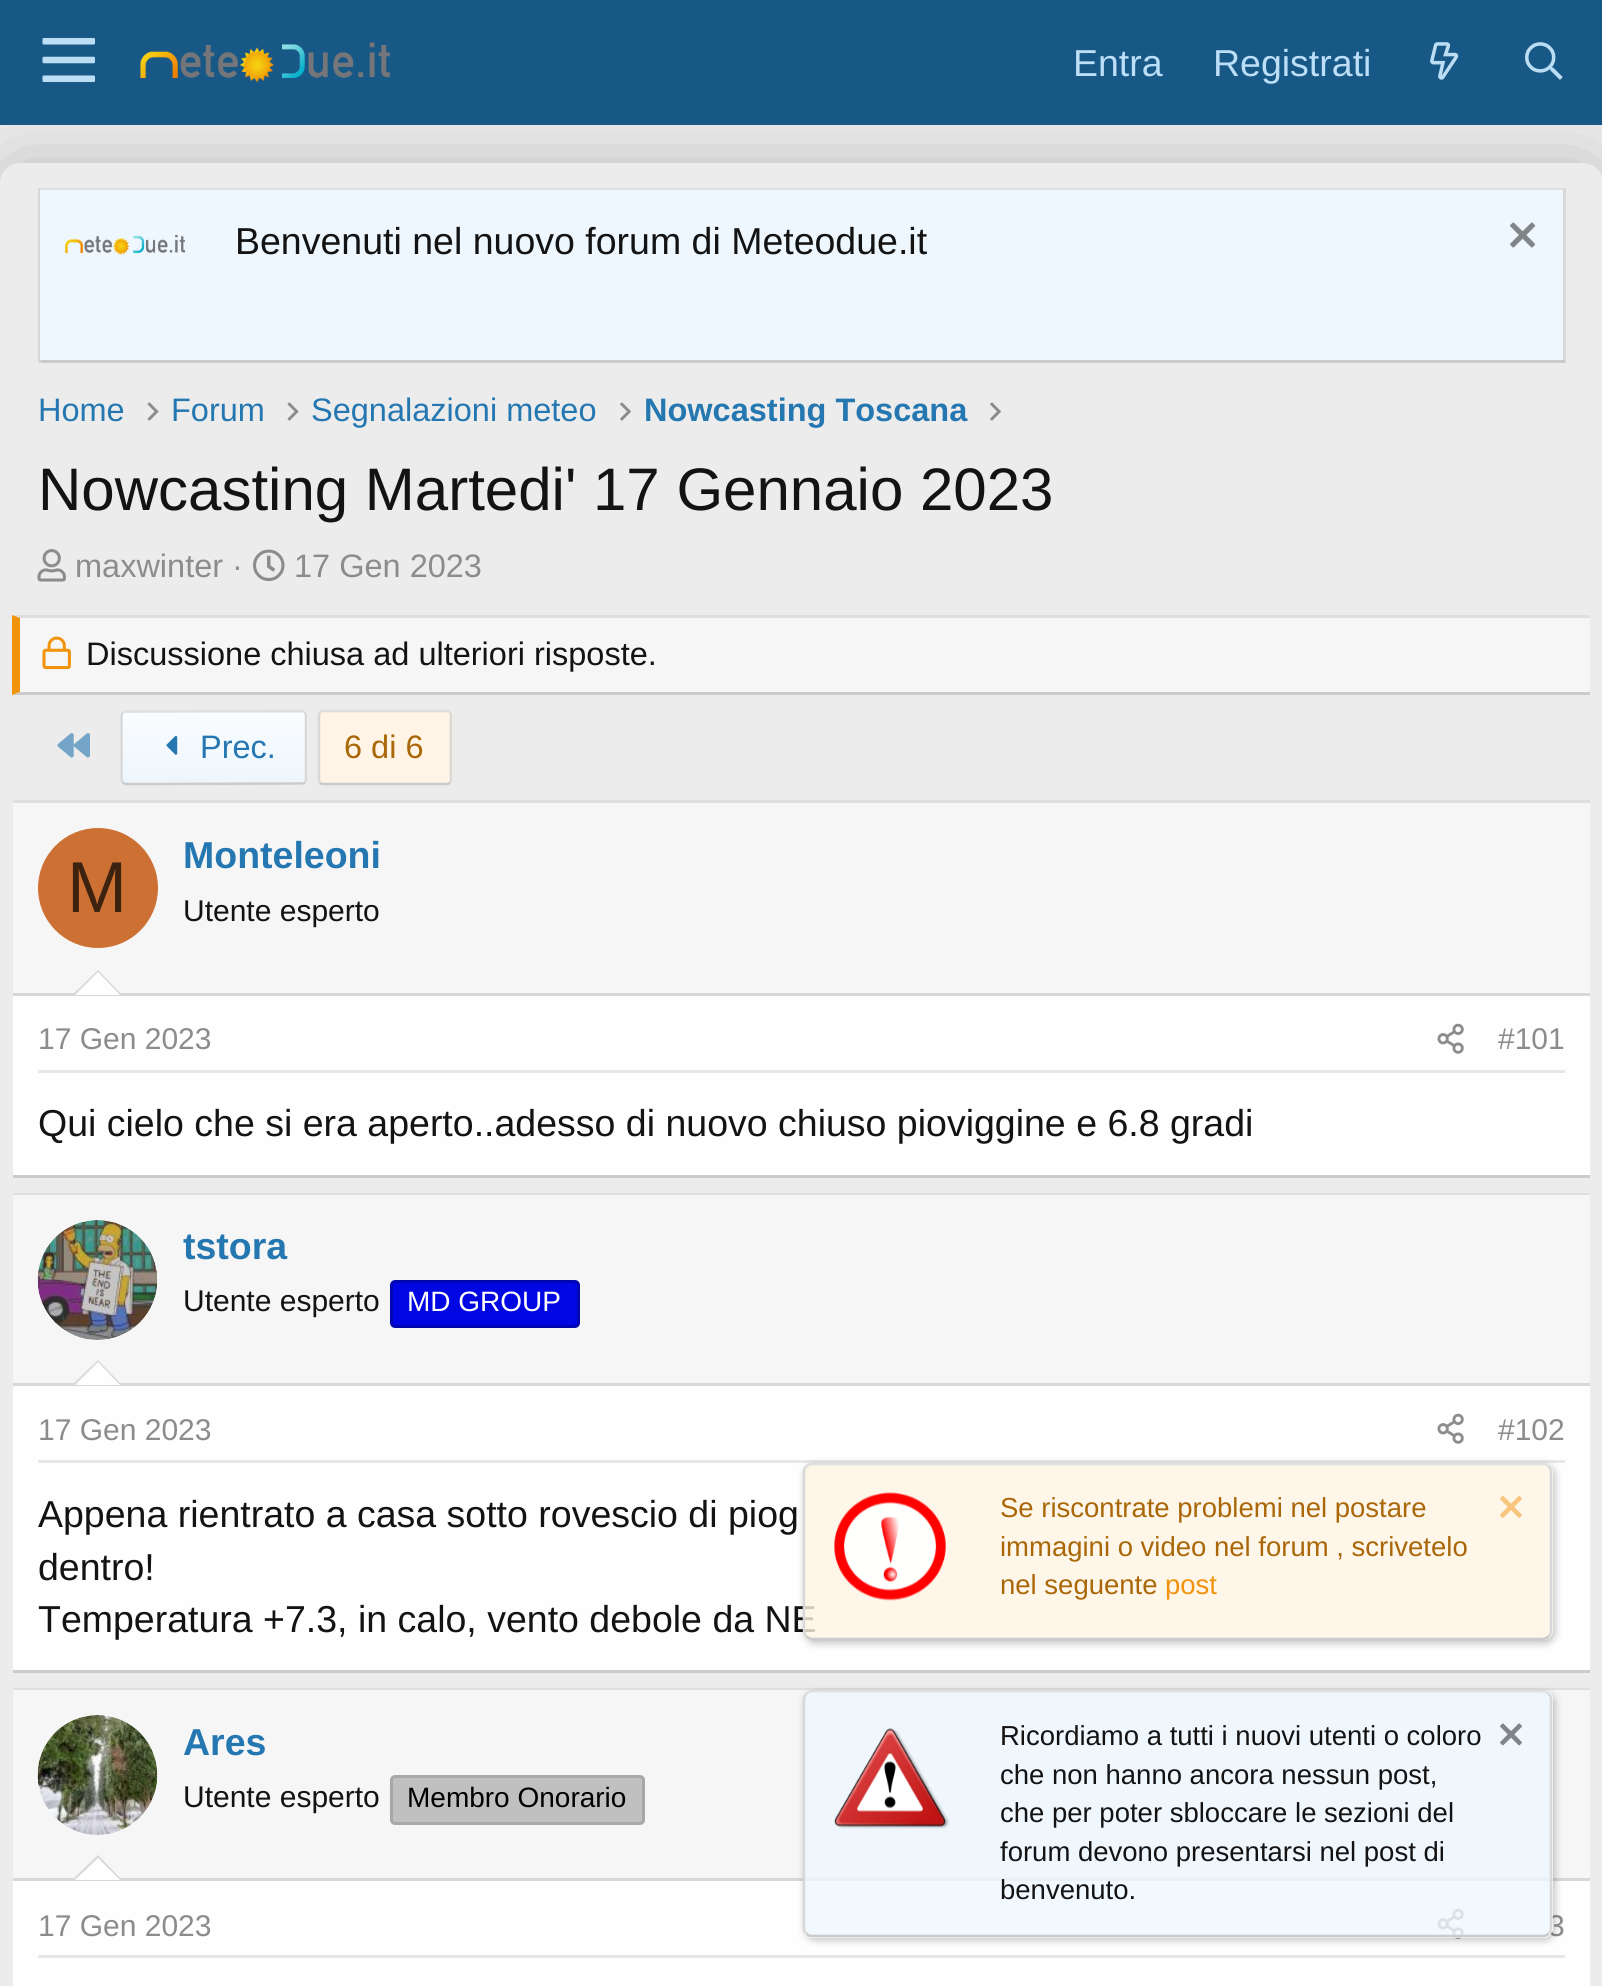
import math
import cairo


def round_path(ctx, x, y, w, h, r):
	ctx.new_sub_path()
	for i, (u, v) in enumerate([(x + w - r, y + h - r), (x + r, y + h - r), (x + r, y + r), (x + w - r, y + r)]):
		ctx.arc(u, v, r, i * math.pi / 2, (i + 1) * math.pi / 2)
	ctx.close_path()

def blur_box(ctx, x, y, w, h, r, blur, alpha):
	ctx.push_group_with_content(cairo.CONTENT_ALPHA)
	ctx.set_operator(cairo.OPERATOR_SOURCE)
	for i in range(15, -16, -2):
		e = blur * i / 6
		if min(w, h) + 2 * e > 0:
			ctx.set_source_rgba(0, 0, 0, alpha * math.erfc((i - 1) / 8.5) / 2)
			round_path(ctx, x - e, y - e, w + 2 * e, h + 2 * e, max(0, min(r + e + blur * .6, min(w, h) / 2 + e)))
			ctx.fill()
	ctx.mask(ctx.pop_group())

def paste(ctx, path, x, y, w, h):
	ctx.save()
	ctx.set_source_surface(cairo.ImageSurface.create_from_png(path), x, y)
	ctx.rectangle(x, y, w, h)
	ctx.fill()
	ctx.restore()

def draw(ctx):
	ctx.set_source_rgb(0.925, 0.925, 0.925)
	ctx.paint()
	ctx.set_source_rgb(0.745, 0.745, 0.745)
	blur_box(ctx, 0, 163, 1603, 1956, 20, 37.5, 1)
	ctx.set_source_rgb(0.094, 0.345, 0.525)
	ctx.rectangle(0, 0, 1602, 125)
	ctx.fill()
	paste(ctx, 'media/1.png', 42, 38, 53, 44)
	paste(ctx, 'media/2.png', 140, 42, 250, 41)
	ctx.select_font_face('Liberation Sans')
	ctx.set_font_size(37.5)
	ctx.set_source_rgb(0.737, 0.871, 0.961)
	ctx.move_to(1073, 76)
	ctx.show_text('Entra')
	ctx.move_to(1213, 76)
	ctx.show_text('Registrati')
	paste(ctx, 'media/3.png', 1430, 42, 29, 38)
	paste(ctx, 'media/4.png', 1525, 42, 38, 38)
	ctx.set_source_rgb(0.925, 0.925, 0.925)
	round_path(ctx, 0, 163, 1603, 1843, 20)
	ctx.fill()
	ctx.set_source_rgb(0.875, 0.875, 0.875)
	ctx.rectangle(38, 188, 1527, 2)
	ctx.fill()
	ctx.set_source_rgb(0.847, 0.847, 0.847)
	ctx.rectangle(1563, 188, 3, 175)
	ctx.fill()
	ctx.set_source_rgb(0.796, 0.796, 0.796)
	ctx.rectangle(38, 360, 1527, 3)
	ctx.fill()
	ctx.set_source_rgb(0.847, 0.847, 0.847)
	ctx.rectangle(38, 188, 3, 175)
	ctx.fill()
	ctx.set_source_rgb(0.929, 0.965, 0.992)
	ctx.rectangle(40, 190, 1523, 170)
	ctx.fill()
	paste(ctx, 'media/5.png', 65, 235, 120, 20)
	ctx.set_source_rgb(0.078, 0.078, 0.078)
	ctx.move_to(235, 254)
	ctx.show_text('Benvenuti nel nuovo forum di Meteodue.it')
	paste(ctx, 'media/6.png', 1510, 222, 26, 26)
	ctx.set_font_size(32.5)
	ctx.set_source_rgb(0.145, 0.467, 0.694)
	ctx.move_to(38, 421)
	ctx.show_text('Home')
	paste(ctx, 'media/7.png', 147, 402, 12, 19)
	ctx.move_to(171, 421)
	ctx.show_text('Forum')
	paste(ctx, 'media/7.png', 287, 402, 12, 19)
	ctx.move_to(311, 421)
	ctx.show_text('Segnalazioni meteo')
	paste(ctx, 'media/8.png', 620, 402, 11, 19)
	ctx.select_font_face('Liberation Sans', cairo.FONT_SLANT_NORMAL, cairo.FONT_WEIGHT_BOLD)
	ctx.move_to(644, 421)
	ctx.show_text('Nowcasting Toscana')
	paste(ctx, 'media/8.png', 990, 402, 11, 19)
	ctx.select_font_face('Liberation Sans')
	ctx.set_font_size(60)
	ctx.set_source_rgb(0.078, 0.078, 0.078)
	ctx.move_to(38, 510)
	ctx.show_text('Nowcasting Martedi\' 17 Gennaio 2023')
	paste(ctx, 'media/9.png', 37, 549, 29, 33)
	ctx.set_font_size(32.5)
	ctx.set_source_rgb(0.549, 0.549, 0.549)
	ctx.move_to(75, 577)
	ctx.show_text('maxwinter ·')
	paste(ctx, 'media/10.png', 253, 549, 32, 33)
	ctx.move_to(294, 577)
	ctx.show_text('17 Gen 2023')
	ctx.set_source_rgb(0.961, 0.961, 0.961)
	ctx.rectangle(13, 615, 1577, 80)
	ctx.fill()
	ctx.set_source_rgb(0.875, 0.875, 0.875)
	ctx.new_path()
	ctx.move_to(12, 615)
	ctx.line_to(1590, 615)
	ctx.line_to(1590, 618)
	ctx.line_to(20, 618)
	ctx.close_path()
	ctx.fill()
	ctx.set_source_rgb(0.796, 0.796, 0.796)
	ctx.new_path()
	ctx.move_to(1590, 695)
	ctx.line_to(12, 695)
	ctx.line_to(20, 692)
	ctx.line_to(1590, 692)
	ctx.close_path()
	ctx.fill()
	ctx.set_source_rgb(0.949, 0.576, 0.051)
	ctx.new_path()
	ctx.move_to(12, 695)
	ctx.line_to(12, 615)
	ctx.line_to(20, 618)
	ctx.line_to(20, 692)
	ctx.close_path()
	ctx.fill()
	paste(ctx, 'media/11.png', 42, 636, 29, 34)
	ctx.set_source_rgb(0.078, 0.078, 0.078)
	ctx.move_to(86, 665)
	ctx.show_text('Discussione chiusa ad ulteriori risposte.')
	paste(ctx, 'media/12.png', 57, 733, 33, 25)
	ctx.save()
	round_path(ctx, 120, 710, 188, 75, 5)
	ctx.clip()
	gradient = cairo.LinearGradient(214, 713, 214, 643)
	gradient.add_color_stop_rgba(0, 0.929, 0.965, 0.992, 1)
	gradient.add_color_stop_rgba(1, 0.98, 0.988, 0.996, 1)
	ctx.set_source(gradient)
	ctx.rectangle(120, 710, 188, 3)
	ctx.fill()
	gradient = cairo.LinearGradient(214, 783, 214, 713)
	gradient.add_color_stop_rgba(0, 0.929, 0.965, 0.992, 1)
	gradient.add_color_stop_rgba(1, 0.98, 0.988, 0.996, 1)
	ctx.set_source(gradient)
	ctx.rectangle(120, 713, 188, 70)
	ctx.fill()
	gradient = cairo.LinearGradient(214, 853, 214, 783)
	gradient.add_color_stop_rgba(0, 0.929, 0.965, 0.992, 1)
	gradient.add_color_stop_rgba(1, 0.98, 0.988, 0.996, 1)
	ctx.set_source(gradient)
	ctx.rectangle(120, 783, 188, 2)
	ctx.fill()
	ctx.restore()
	ctx.new_path()
	ctx.move_to(122.5, 712.5)
	ctx.line_to(124.5, 711.5)
	ctx.line_to(273, 711)
	ctx.line_to(302.5, 711)
	ctx.line_to(305, 712.5)
	ctx.set_source_rgb(0.875, 0.875, 0.875)
	ctx.set_line_width(2.5)
	ctx.stroke()
	ctx.new_path()
	ctx.move_to(305, 712.5)
	ctx.line_to(306, 714.5)
	ctx.line_to(306, 780.5)
	ctx.line_to(305, 782.5)
	ctx.set_source_rgb(0.847, 0.847, 0.847)
	ctx.stroke()
	ctx.new_path()
	ctx.move_to(305, 782.5)
	ctx.line_to(303, 783.5)
	ctx.line_to(154.5, 784)
	ctx.line_to(125, 784)
	ctx.line_to(122.5, 782.5)
	ctx.set_source_rgb(0.796, 0.796, 0.796)
	ctx.stroke()
	ctx.new_path()
	ctx.move_to(122.5, 782.5)
	ctx.line_to(121.5, 780.5)
	ctx.line_to(121.5, 714.5)
	ctx.line_to(122.5, 712.5)
	ctx.set_source_rgb(0.847, 0.847, 0.847)
	ctx.stroke()
	paste(ctx, 'media/13.png', 166, 735, 12, 20)
	ctx.set_source_rgb(0.145, 0.467, 0.694)
	ctx.move_to(200, 758)
	ctx.show_text('Prec.')
	ctx.set_source_rgb(1, 0.957, 0.898)
	round_path(ctx, 318, 710, 135, 75, 5)
	ctx.fill()
	ctx.new_path()
	ctx.move_to(320, 712.5)
	ctx.curve_to(320.5, 711.5, 321.5, 711, 322.5, 711)
	ctx.line_to(447.5, 711)
	ctx.curve_to(448.5, 711, 449.5, 711.5, 450, 712.5)
	ctx.set_source_rgb(0.875, 0.875, 0.875)
	ctx.stroke()
	ctx.new_path()
	ctx.move_to(450, 712.5)
	ctx.line_to(451, 714.5)
	ctx.line_to(451, 780.5)
	ctx.line_to(450, 782.5)
	ctx.set_source_rgb(0.847, 0.847, 0.847)
	ctx.stroke()
	ctx.new_path()
	ctx.move_to(450, 782.5)
	ctx.curve_to(449.5, 783.5, 448.5, 784, 447.5, 784)
	ctx.line_to(322.5, 784)
	ctx.curve_to(321.5, 784, 320.5, 783.5, 320, 782.5)
	ctx.set_source_rgb(0.796, 0.796, 0.796)
	ctx.stroke()
	ctx.new_path()
	ctx.move_to(320, 782.5)
	ctx.line_to(319, 780.5)
	ctx.line_to(319, 714.5)
	ctx.line_to(320, 712.5)
	ctx.set_source_rgb(0.847, 0.847, 0.847)
	ctx.stroke()
	ctx.set_source_rgb(0.667, 0.404, 0.035)
	ctx.move_to(344, 758)
	ctx.show_text('6 di 6')
	ctx.set_source_rgb(0.996, 0.996, 0.996)
	ctx.rectangle(13, 996, 1577, 179)
	ctx.fill()
	ctx.set_source_rgb(0.875, 0.875, 0.875)
	ctx.rectangle(13, 800, 1577, 3)
	ctx.fill()
	ctx.set_source_rgb(0.796, 0.796, 0.796)
	ctx.rectangle(13, 1175, 1577, 3)
	ctx.fill()
	ctx.set_source_rgb(0.961, 0.961, 0.961)
	ctx.rectangle(13, 803, 1577, 190)
	ctx.fill()
	ctx.set_source_rgb(0.847, 0.847, 0.847)
	ctx.rectangle(13, 993, 1577, 3)
	ctx.fill()
	ctx.set_source_rgb(0.8, 0.439, 0.2)
	ctx.arc(98, 888, 60, 0, 2 * math.pi)
	ctx.fill()
	ctx.set_font_size(72)
	ctx.set_source_rgb(0.239, 0.133, 0.059)
	ctx.move_to(67, 912)
	ctx.show_text('M')
	ctx.select_font_face('Liberation Sans', cairo.FONT_SLANT_NORMAL, cairo.FONT_WEIGHT_BOLD)
	ctx.set_font_size(37.5)
	ctx.set_source_rgb(0.145, 0.467, 0.694)
	ctx.move_to(183, 868)
	ctx.show_text('Monteleoni')
	ctx.select_font_face('Liberation Sans')
	ctx.set_font_size(30)
	ctx.set_source_rgb(0.078, 0.078, 0.078)
	ctx.move_to(183, 921)
	ctx.show_text('Utente esperto')
	ctx.set_source_rgb(0.847, 0.847, 0.847)
	ctx.new_path()
	ctx.move_to(122, 995)
	ctx.line_to(72, 995)
	ctx.line_to(98, 970)
	ctx.close_path()
	ctx.fill()
	ctx.set_source_rgb(0.996, 0.996, 0.996)
	ctx.new_path()
	ctx.move_to(120, 995)
	ctx.line_to(75, 995)
	ctx.line_to(98, 972)
	ctx.close_path()
	ctx.fill()
	ctx.set_source_rgb(0.906, 0.906, 0.906)
	ctx.rectangle(38, 1070, 1527, 3)
	ctx.fill()
	ctx.set_source_rgb(0.549, 0.549, 0.549)
	ctx.move_to(38, 1049)
	ctx.show_text('17 Gen 2023')
	paste(ctx, 'media/14.png', 1437, 1023, 27, 31)
	ctx.move_to(1498, 1049)
	ctx.show_text('#101')
	ctx.set_font_size(37.5)
	ctx.set_source_rgb(0.078, 0.078, 0.078)
	ctx.move_to(38, 1136)
	ctx.show_text('Qui cielo che si era aperto..adesso di nuovo chiuso pioviggine e 6.8 gradi')
	ctx.set_source_rgb(0.996, 0.996, 0.996)
	ctx.rectangle(13, 1386, 1577, 284)
	ctx.fill()
	ctx.set_source_rgb(0.875, 0.875, 0.875)
	ctx.rectangle(13, 1193, 1577, 2)
	ctx.fill()
	ctx.set_source_rgb(0.796, 0.796, 0.796)
	ctx.rectangle(13, 1670, 1577, 3)
	ctx.fill()
	ctx.set_source_rgb(0.961, 0.961, 0.961)
	ctx.rectangle(13, 1195, 1577, 188)
	ctx.fill()
	ctx.set_source_rgb(0.847, 0.847, 0.847)
	ctx.rectangle(13, 1383, 1577, 3)
	ctx.fill()
	ctx.set_source_rgb(0.996, 0.996, 0.996)
	ctx.arc(98, 1280, 60, 0, 2 * math.pi)
	ctx.fill()
	paste(ctx, 'media/15.png', 37, 1220, 121, 120)
	ctx.select_font_face('Liberation Sans', cairo.FONT_SLANT_NORMAL, cairo.FONT_WEIGHT_BOLD)
	ctx.set_source_rgb(0.145, 0.467, 0.694)
	ctx.move_to(183, 1259)
	ctx.show_text('tstora')
	ctx.select_font_face('Liberation Sans')
	ctx.set_font_size(30)
	ctx.set_source_rgb(0.078, 0.078, 0.078)
	ctx.move_to(183, 1311)
	ctx.show_text('Utente esperto')
	ctx.set_source_rgb(0, 0.031, 0.89)
	round_path(ctx, 391.5, 1281.5, 187, 45, 3.5)
	ctx.fill_preserve()
	ctx.set_source_rgb(0, 0.024, 0.69)
	ctx.set_line_width(3)
	ctx.stroke()
	ctx.set_font_size(28)
	ctx.set_source_rgb(1, 1, 1)
	ctx.move_to(407, 1311)
	ctx.show_text('MD GROUP')
	ctx.set_source_rgb(0.847, 0.847, 0.847)
	ctx.new_path()
	ctx.move_to(122, 1385)
	ctx.line_to(72, 1385)
	ctx.line_to(98, 1360)
	ctx.close_path()
	ctx.fill()
	ctx.set_source_rgb(0.996, 0.996, 0.996)
	ctx.new_path()
	ctx.move_to(120, 1385)
	ctx.line_to(75, 1385)
	ctx.line_to(98, 1362)
	ctx.close_path()
	ctx.fill()
	ctx.set_source_rgb(0.906, 0.906, 0.906)
	ctx.rectangle(38, 1460, 1527, 3)
	ctx.fill()
	ctx.set_font_size(30)
	ctx.set_source_rgb(0.549, 0.549, 0.549)
	ctx.move_to(38, 1440)
	ctx.show_text('17 Gen 2023')
	paste(ctx, 'media/14.png', 1437, 1413, 27, 31)
	ctx.move_to(1498, 1440)
	ctx.show_text('#102')
	ctx.set_font_size(37.5)
	ctx.set_source_rgb(0.078, 0.078, 0.078)
	for x, y, s in [
		(38, 1527, 'Appena rientrato a casa sotto rovescio di piog'),
		(38, 1580, 'dentro!'),
		(38, 1632, 'Temperatura +7.3, in calo, vento debole da NE'),
	]:
		ctx.move_to(x, y)
		ctx.show_text(s)
	ctx.set_source_rgb(0.996, 0.996, 0.996)
	ctx.rectangle(13, 1881, 1577, 105)
	ctx.fill()
	ctx.set_source_rgb(0.875, 0.875, 0.875)
	ctx.rectangle(13, 1688, 1577, 2)
	ctx.fill()
	ctx.set_source_rgb(0.961, 0.961, 0.961)
	ctx.rectangle(13, 1690, 1577, 188)
	ctx.fill()
	ctx.set_source_rgb(0.847, 0.847, 0.847)
	ctx.rectangle(13, 1878, 1577, 3)
	ctx.fill()
	ctx.set_source_rgb(0.996, 0.996, 0.996)
	ctx.arc(98, 1775, 60, 0, 2 * math.pi)
	ctx.fill()
	paste(ctx, 'media/16.png', 37, 1715, 121, 120)
	ctx.select_font_face('Liberation Sans', cairo.FONT_SLANT_NORMAL, cairo.FONT_WEIGHT_BOLD)
	ctx.set_source_rgb(0.145, 0.467, 0.694)
	ctx.move_to(183, 1755)
	ctx.show_text('Ares')
	ctx.select_font_face('Liberation Sans')
	ctx.set_font_size(30)
	ctx.set_source_rgb(0.078, 0.078, 0.078)
	ctx.move_to(183, 1807)
	ctx.show_text('Utente esperto')
	ctx.set_source_rgb(0.753, 0.753, 0.753)
	round_path(ctx, 391.5, 1776.5, 252, 47, 3.5)
	ctx.fill_preserve()
	ctx.set_source_rgb(0.655, 0.655, 0.655)
	ctx.stroke()
	ctx.set_font_size(28)
	ctx.set_source_rgb(0, 0, 0)
	ctx.move_to(407, 1807)
	ctx.show_text('Membro Onorario')
	ctx.set_source_rgb(0.847, 0.847, 0.847)
	ctx.new_path()
	ctx.move_to(122, 1880)
	ctx.line_to(72, 1880)
	ctx.line_to(98, 1855)
	ctx.close_path()
	ctx.fill()
	ctx.set_source_rgb(0.996, 0.996, 0.996)
	ctx.new_path()
	ctx.move_to(120, 1880)
	ctx.line_to(75, 1880)
	ctx.line_to(98, 1858)
	ctx.close_path()
	ctx.fill()
	ctx.set_source_rgb(0.906, 0.906, 0.906)
	ctx.rectangle(38, 1955, 1527, 3)
	ctx.fill()
	ctx.set_font_size(30)
	ctx.set_source_rgb(0.549, 0.549, 0.549)
	ctx.move_to(38, 1936)
	ctx.show_text('17 Gen 2023')
	paste(ctx, 'media/14.png', 1437, 1908, 27, 31)
	ctx.move_to(1548, 1936)
	ctx.show_text('3')
	ctx.save()
	ctx.set_fill_rule(cairo.FILL_RULE_EVEN_ODD)
	ctx.new_path()
	ctx.move_to(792, 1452)
	ctx.line_to(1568, 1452)
	ctx.line_to(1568, 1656)
	ctx.line_to(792, 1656)
	ctx.close_path()
	ctx.move_to(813, 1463)
	ctx.line_to(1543, 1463)
	ctx.curve_to(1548.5, 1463, 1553, 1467.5, 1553, 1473)
	ctx.line_to(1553, 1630)
	ctx.curve_to(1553, 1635.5, 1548.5, 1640, 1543, 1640)
	ctx.line_to(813, 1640)
	ctx.curve_to(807.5, 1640, 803, 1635.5, 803, 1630)
	ctx.line_to(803, 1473)
	ctx.curve_to(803, 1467.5, 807.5, 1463, 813, 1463)
	ctx.close_path()
	ctx.clip()
	ctx.set_source_rgb(0, 0, 0)
	blur_box(ctx, 805, 1465, 750, 178, 10, 4, 0.25)
	ctx.restore()
	ctx.set_source_rgba(1, 0.957, 0.898, 0.8)
	round_path(ctx, 803, 1463, 750, 177, 10)
	ctx.fill()
	ctx.new_path()
	ctx.move_to(806.5, 1466.5)
	ctx.curve_to(808, 1464.5, 810, 1464, 812.5, 1464)
	ctx.line_to(1542.5, 1464)
	ctx.curve_to(1545, 1464, 1547, 1464.5, 1548.5, 1466.5)
	ctx.set_source_rgb(0.875, 0.875, 0.875)
	ctx.set_line_width(2.5)
	ctx.stroke()
	ctx.new_path()
	ctx.move_to(1548.5, 1466.5)
	ctx.curve_to(1550.5, 1468, 1551, 1470, 1551, 1472.5)
	ctx.line_to(1551, 1630)
	ctx.curve_to(1551, 1632.5, 1550.5, 1634.5, 1548.5, 1636)
	ctx.set_source_rgb(0.847, 0.847, 0.847)
	ctx.stroke()
	ctx.new_path()
	ctx.move_to(1548.5, 1636)
	ctx.curve_to(1547, 1638, 1545, 1639, 1542.5, 1639)
	ctx.line_to(812.5, 1639)
	ctx.curve_to(810, 1639, 808, 1638, 806.5, 1636)
	ctx.set_source_rgb(0.796, 0.796, 0.796)
	ctx.stroke()
	ctx.new_path()
	ctx.move_to(806.5, 1636)
	ctx.curve_to(804.5, 1634.5, 804, 1632.5, 804, 1630)
	ctx.line_to(804, 1472.5)
	ctx.curve_to(804, 1470, 804.5, 1468, 806.5, 1466.5)
	ctx.set_source_rgb(0.847, 0.847, 0.847)
	ctx.stroke()
	paste(ctx, 'media/17.png', 834, 1492, 113, 109)
	ctx.set_font_size(27.5)
	ctx.set_source_rgb(0.667, 0.404, 0.035)
	ctx.move_to(1000, 1517)
	ctx.show_text('Se riscontrate problemi nel postare')
	paste(ctx, 'media/18.png', 1500, 1495, 22, 23)
	ctx.move_to(1000, 1556)
	ctx.show_text('immagini o video nel forum , scrivetelo')
	ctx.move_to(1000, 1594)
	ctx.show_text('nel seguente')
	ctx.set_source_rgb(0.949, 0.576, 0.051)
	ctx.move_to(1165, 1594)
	ctx.show_text('post')
	ctx.save()
	ctx.set_fill_rule(cairo.FILL_RULE_EVEN_ODD)
	ctx.new_path()
	ctx.move_to(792, 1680)
	ctx.line_to(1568, 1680)
	ctx.line_to(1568, 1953)
	ctx.line_to(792, 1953)
	ctx.close_path()
	ctx.move_to(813, 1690)
	ctx.line_to(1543, 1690)
	ctx.curve_to(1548.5, 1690, 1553, 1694.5, 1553, 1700)
	ctx.line_to(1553, 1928)
	ctx.curve_to(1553, 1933.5, 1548.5, 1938, 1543, 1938)
	ctx.line_to(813, 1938)
	ctx.curve_to(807.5, 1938, 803, 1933.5, 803, 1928)
	ctx.line_to(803, 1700)
	ctx.curve_to(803, 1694.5, 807.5, 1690, 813, 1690)
	ctx.close_path()
	ctx.clip()
	ctx.set_source_rgb(0, 0, 0)
	blur_box(ctx, 805, 1693, 750, 247, 10, 4, 0.25)
	ctx.restore()
	ctx.set_source_rgba(0.929, 0.965, 0.992, 0.8)
	round_path(ctx, 803, 1690, 750, 248, 10)
	ctx.fill()
	ctx.new_path()
	ctx.move_to(806.5, 1694)
	ctx.curve_to(808, 1692, 810, 1691, 812.5, 1691)
	ctx.line_to(1542.5, 1691)
	ctx.curve_to(1545, 1691, 1547, 1692, 1548.5, 1694)
	ctx.set_source_rgb(0.875, 0.875, 0.875)
	ctx.stroke()
	ctx.new_path()
	ctx.move_to(1548.5, 1694)
	ctx.curve_to(1550.5, 1695.5, 1551, 1697.5, 1551, 1700)
	ctx.line_to(1551, 1927.5)
	ctx.curve_to(1551, 1930, 1550.5, 1932, 1548.5, 1933.5)
	ctx.set_source_rgb(0.847, 0.847, 0.847)
	ctx.stroke()
	ctx.new_path()
	ctx.move_to(1548.5, 1933.5)
	ctx.curve_to(1547, 1935.5, 1545, 1936, 1542.5, 1936)
	ctx.line_to(812.5, 1936)
	ctx.curve_to(810, 1936, 808, 1935.5, 806.5, 1933.5)
	ctx.set_source_rgb(0.796, 0.796, 0.796)
	ctx.stroke()
	ctx.new_path()
	ctx.move_to(806.5, 1933.5)
	ctx.curve_to(804.5, 1932, 804, 1930, 804, 1927.5)
	ctx.line_to(804, 1700)
	ctx.curve_to(804, 1697.5, 804.5, 1695.5, 806.5, 1694)
	ctx.set_source_rgb(0.847, 0.847, 0.847)
	ctx.stroke()
	paste(ctx, 'media/19.png', 834, 1728, 116, 101)
	ctx.set_source_rgb(0.078, 0.078, 0.078)
	ctx.move_to(1000, 1745)
	ctx.show_text('Ricordiamo a tutti i nuovi utenti o coloro')
	paste(ctx, 'media/20.png', 1500, 1723, 22, 23)
	for x, y, s in [
		(1000, 1784, 'che non hanno ancora nessun post,'),
		(1000, 1822, 'che per poter sbloccare le sezioni del'),
		(1000, 1861, 'forum devono presentarsi nel post di'),
		(1000, 1899, 'benvenuto.'),
	]:
		ctx.move_to(x, y)
		ctx.show_text(s)


surface = cairo.ImageSurface(cairo.FORMAT_RGB24, 1602, 1986)
ctx = cairo.Context(surface)
options = cairo.FontOptions()
options.set_hint_metrics(cairo.HINT_METRICS_OFF)
options.set_hint_style(cairo.HINT_STYLE_NONE)
ctx.set_font_options(options)
ctx.set_miter_limit(4)
draw(ctx)
surface.write_to_png('image.png')
